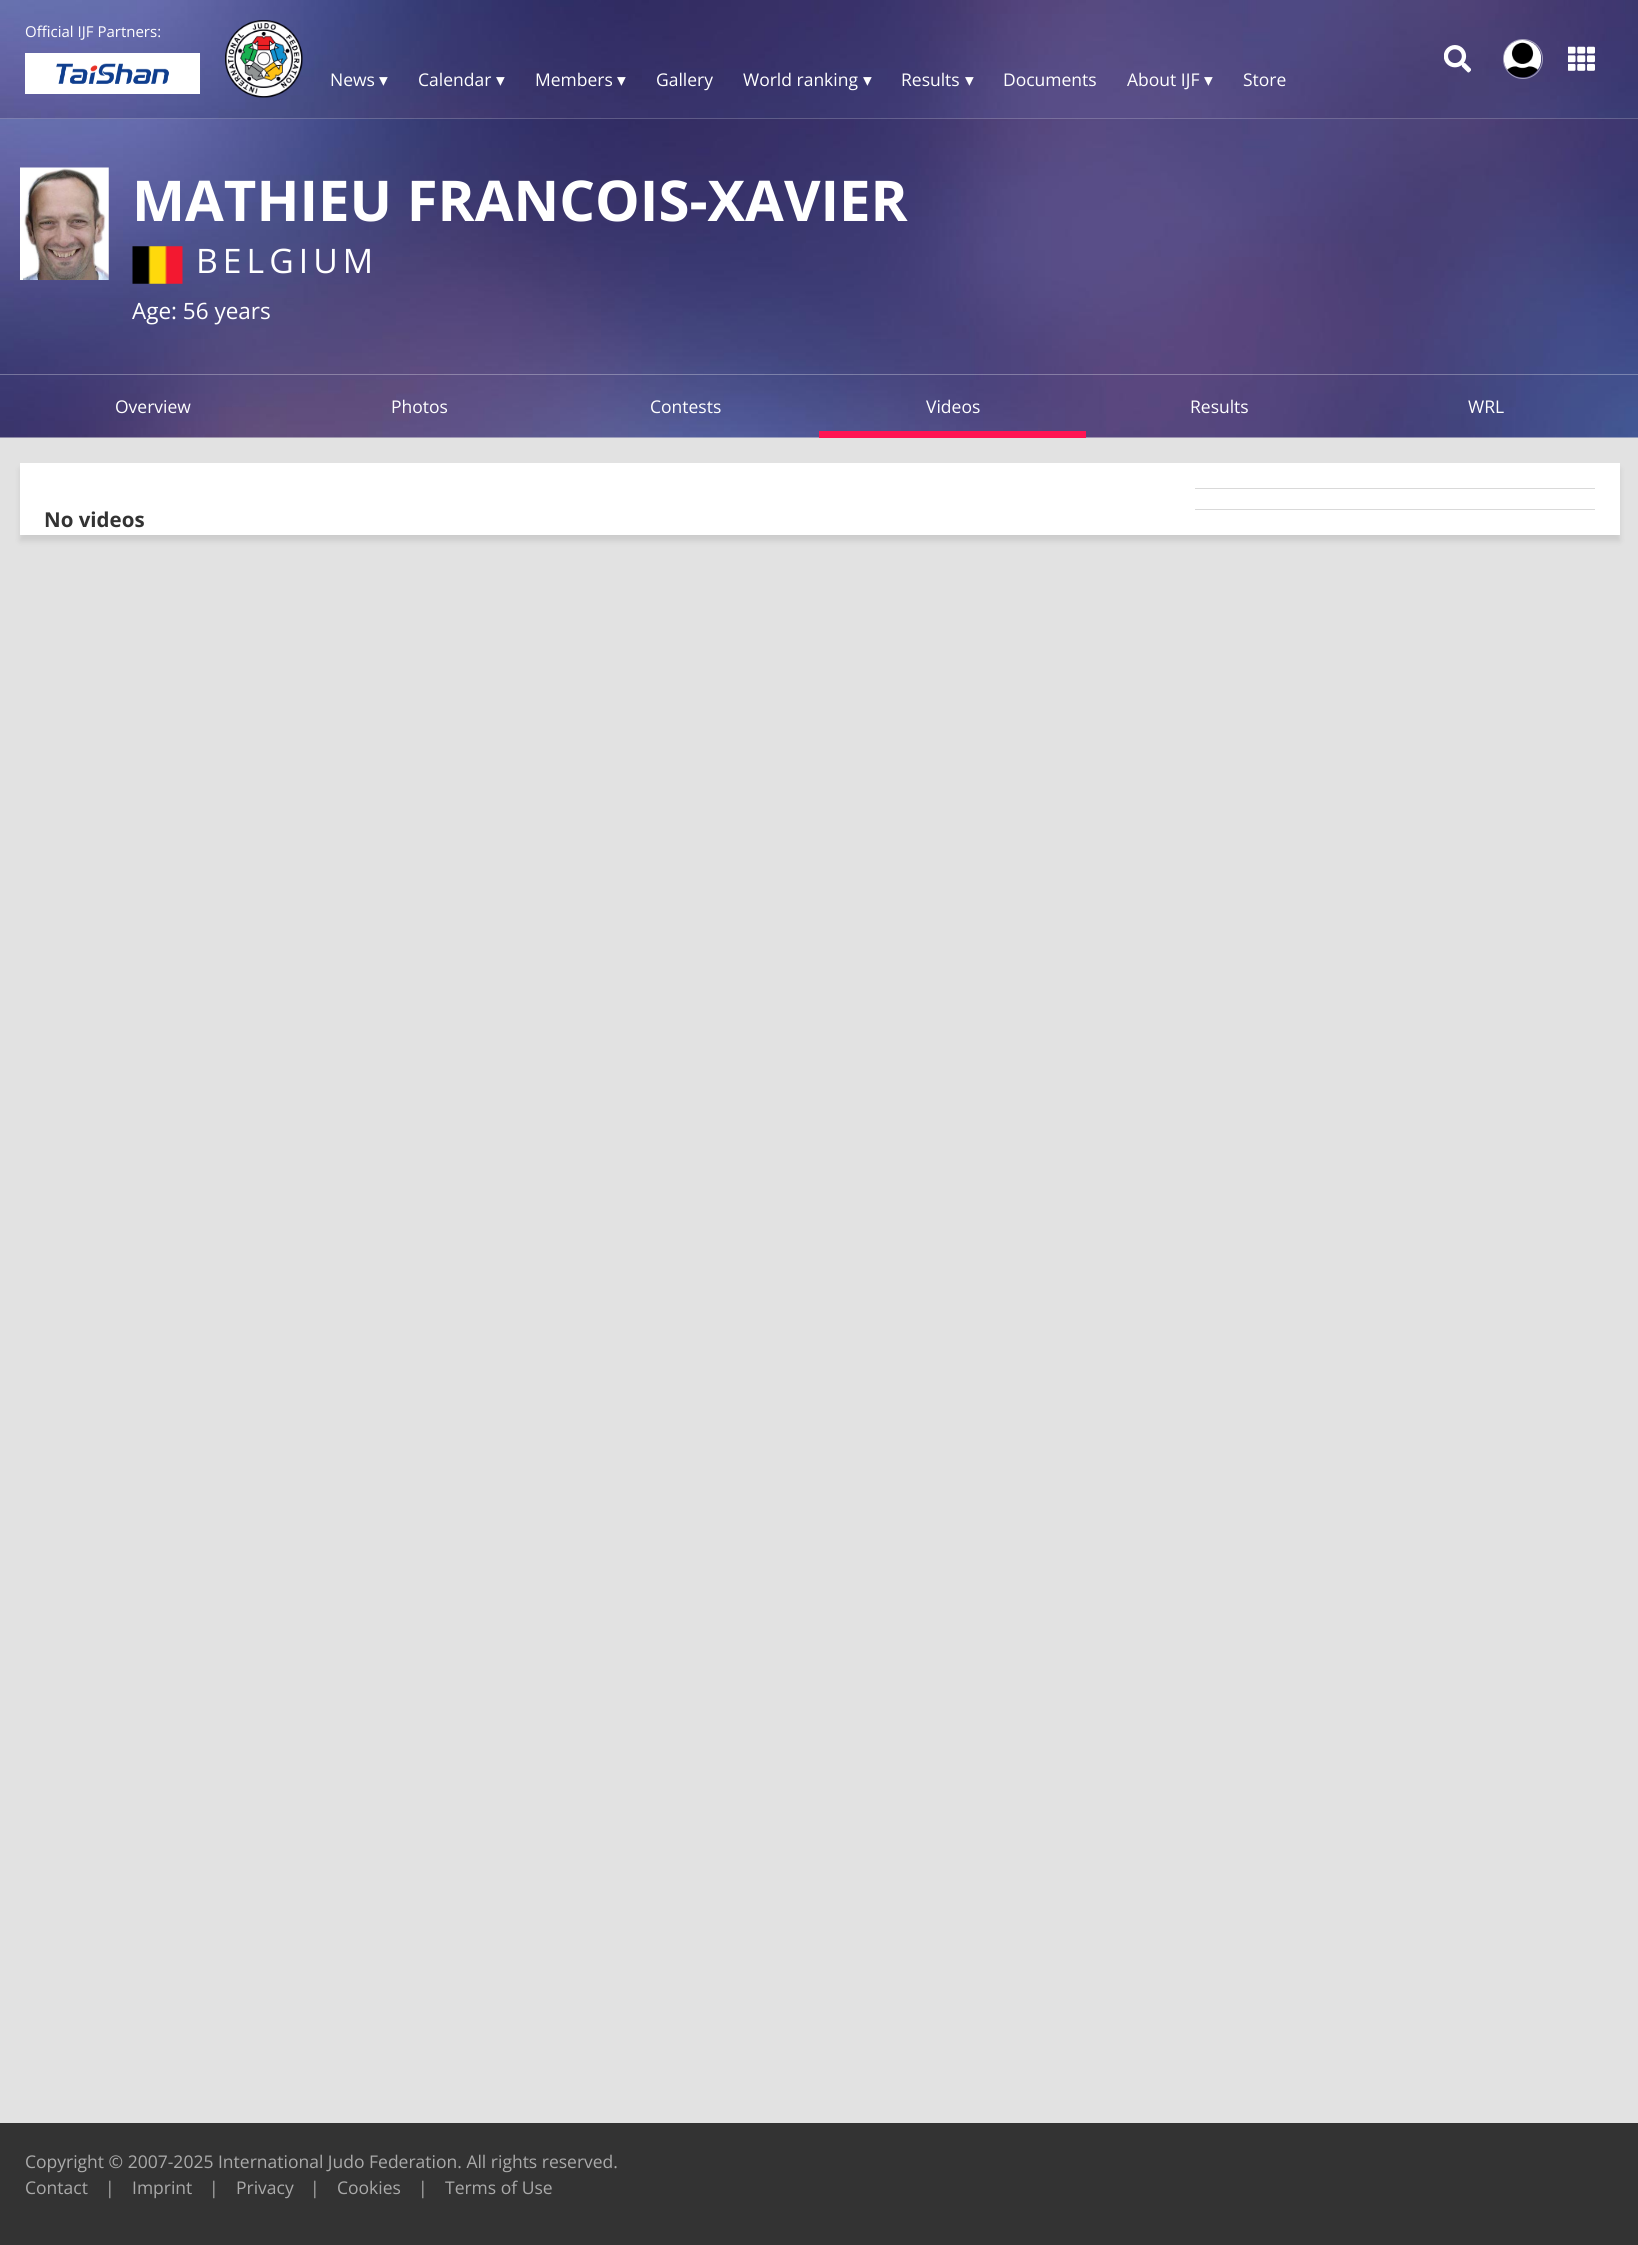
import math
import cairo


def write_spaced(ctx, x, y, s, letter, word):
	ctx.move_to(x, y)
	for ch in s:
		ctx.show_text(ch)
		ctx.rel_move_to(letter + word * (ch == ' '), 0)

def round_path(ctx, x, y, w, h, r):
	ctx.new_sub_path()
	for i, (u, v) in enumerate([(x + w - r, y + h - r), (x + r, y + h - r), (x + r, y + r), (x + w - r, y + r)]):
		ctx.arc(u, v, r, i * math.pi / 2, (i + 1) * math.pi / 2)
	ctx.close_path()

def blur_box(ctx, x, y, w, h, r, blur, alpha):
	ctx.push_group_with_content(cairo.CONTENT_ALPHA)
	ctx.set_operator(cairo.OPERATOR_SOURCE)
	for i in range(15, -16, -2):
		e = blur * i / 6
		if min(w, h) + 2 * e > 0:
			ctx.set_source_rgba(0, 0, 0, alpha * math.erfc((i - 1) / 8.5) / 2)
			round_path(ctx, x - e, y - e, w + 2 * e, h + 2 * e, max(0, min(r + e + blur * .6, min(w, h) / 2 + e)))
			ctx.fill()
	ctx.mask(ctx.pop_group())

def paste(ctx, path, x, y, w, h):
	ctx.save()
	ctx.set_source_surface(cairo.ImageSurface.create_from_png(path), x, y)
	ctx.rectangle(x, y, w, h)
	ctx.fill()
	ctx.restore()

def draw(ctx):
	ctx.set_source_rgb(0.886, 0.886, 0.886)
	ctx.paint()
	paste(ctx, 'media/7.png', 0, 118, 1638, 320)
	paste(ctx, 'media/1.png', 0, 0, 1638, 119)
	ctx.set_source_rgba(1, 1, 1, 0.2)
	ctx.rectangle(0, 118, 1638, 1)
	ctx.fill()
	ctx.select_font_face('Open Sans')
	ctx.set_font_size(15)
	ctx.set_source_rgb(1, 1, 1)
	ctx.move_to(25, 37)
	ctx.show_text('Official IJF Partners:')
	ctx.rectangle(25, 53, 175, 41)
	ctx.fill()
	paste(ctx, 'media/2.png', 56, 63, 113, 21)
	paste(ctx, 'media/3.png', 225, 20, 78, 78)
	paste(ctx, 'media/4.png', 1444, 45, 27, 28)
	ctx.arc(1523, 59, 19.5, 0, 2 * math.pi)
	ctx.set_source_rgba(1, 1, 1, 0.5)
	ctx.set_line_width(1)
	ctx.stroke()
	paste(ctx, 'media/5.png', 1503, 40, 39, 38)
	paste(ctx, 'media/6.png', 1568, 46, 27, 25)
	ctx.set_font_size(17.5)
	ctx.set_source_rgb(1, 1, 1)
	ctx.move_to(330, 86)
	ctx.show_text('News')
	ctx.select_font_face('DejaVu Sans')
	ctx.move_to(379, 86)
	ctx.show_text('▾')
	ctx.select_font_face('Open Sans')
	ctx.move_to(418, 86)
	ctx.show_text('Calendar')
	ctx.select_font_face('DejaVu Sans')
	ctx.move_to(496, 86)
	ctx.show_text('▾')
	ctx.select_font_face('Open Sans')
	ctx.move_to(535, 86)
	ctx.show_text('Members')
	ctx.select_font_face('DejaVu Sans')
	ctx.move_to(617, 86)
	ctx.show_text('▾')
	ctx.select_font_face('Open Sans')
	ctx.move_to(656, 86)
	ctx.show_text('Gallery')
	ctx.move_to(743, 86)
	ctx.show_text('World ranking')
	ctx.select_font_face('DejaVu Sans')
	ctx.move_to(863, 86)
	ctx.show_text('▾')
	ctx.select_font_face('Open Sans')
	ctx.move_to(901, 86)
	ctx.show_text('Results')
	ctx.select_font_face('DejaVu Sans')
	ctx.move_to(965, 86)
	ctx.show_text('▾')
	ctx.select_font_face('Open Sans')
	ctx.move_to(1003, 86)
	ctx.show_text('Documents')
	ctx.move_to(1127, 86)
	ctx.show_text('About IJF')
	ctx.select_font_face('DejaVu Sans')
	ctx.move_to(1204, 86)
	ctx.show_text('▾')
	ctx.select_font_face('Open Sans')
	ctx.move_to(1243, 86)
	ctx.show_text('Store')
	paste(ctx, 'media/8.png', 20, 167, 89, 113)
	ctx.select_font_face('Open Sans', cairo.FONT_SLANT_NORMAL, cairo.FONT_WEIGHT_BOLD)
	ctx.set_font_size(56.25)
	ctx.move_to(132, 221)
	ctx.show_text('MATHIEU FRANCOIS-XAVIER')
	paste(ctx, 'media/9.png', 132, 246, 51, 38)
	ctx.select_font_face('Open Sans')
	ctx.set_font_size(33.75)
	write_spaced(ctx, 196, 273, 'BELGIUM', 5, 0)
	ctx.set_font_size(22.5)
	ctx.move_to(132, 319)
	ctx.show_text('Age: 56 years')
	ctx.set_source_rgba(1, 1, 1, 0.3)
	ctx.rectangle(0, 374, 1638, 1)
	ctx.fill()
	ctx.set_font_size(17.5)
	ctx.set_source_rgb(1, 1, 1)
	for x, y, s in [
		(115, 413, 'Overview'),
		(391, 413, 'Photos'),
		(650, 413, 'Contests'),
		(926, 413, 'Videos'),
	]:
		ctx.move_to(x, y)
		ctx.show_text(s)
	ctx.set_source_rgb(1, 0.082, 0.325)
	ctx.rectangle(819, 431, 267, 7)
	ctx.fill()
	ctx.set_source_rgb(1, 1, 1)
	ctx.move_to(1190, 413)
	ctx.show_text('Results')
	ctx.move_to(1468, 413)
	ctx.show_text('WRL')
	ctx.set_source_rgb(0, 0, 0)
	blur_box(ctx, 20, 469, 1600, 72, 0, 3, 0.1)
	ctx.set_source_rgb(1, 1, 1)
	ctx.rectangle(20, 463, 1600, 72)
	ctx.fill()
	ctx.set_source_rgb(0.851, 0.851, 0.851)
	ctx.rectangle(1195, 488, 400, 1)
	ctx.rectangle(1195, 509, 400, 1)
	ctx.fill()
	ctx.select_font_face('Open Sans', cairo.FONT_SLANT_NORMAL, cairo.FONT_WEIGHT_BOLD)
	ctx.set_font_size(20.5)
	ctx.set_source_rgb(0.2, 0.2, 0.2)
	ctx.move_to(44, 527)
	ctx.show_text('No videos')
	ctx.rectangle(0, 2123, 1638, 122)
	ctx.fill()
	ctx.select_font_face('Open Sans')
	ctx.set_font_size(17.5)
	ctx.set_source_rgb(0.667, 0.667, 0.667)
	for x, y, s in [
		(25, 2168, 'Copyright © 2007-2025 International Judo Federation. All rights reserved.'),
		(25, 2194, 'Contact'),
		(105, 2194, '|'),
		(132, 2194, 'Imprint'),
		(209, 2194, '|'),
		(236, 2194, 'Privacy'),
		(310, 2194, '|'),
		(337, 2194, 'Cookies'),
		(418, 2194, '|'),
		(445, 2194, 'Terms of Use'),
	]:
		ctx.move_to(x, y)
		ctx.show_text(s)


surface = cairo.ImageSurface(cairo.FORMAT_RGB24, 1638, 2245)
ctx = cairo.Context(surface)
options = cairo.FontOptions()
options.set_hint_metrics(cairo.HINT_METRICS_OFF)
options.set_hint_style(cairo.HINT_STYLE_NONE)
ctx.set_font_options(options)
ctx.set_miter_limit(4)
draw(ctx)
surface.write_to_png('image.png')
